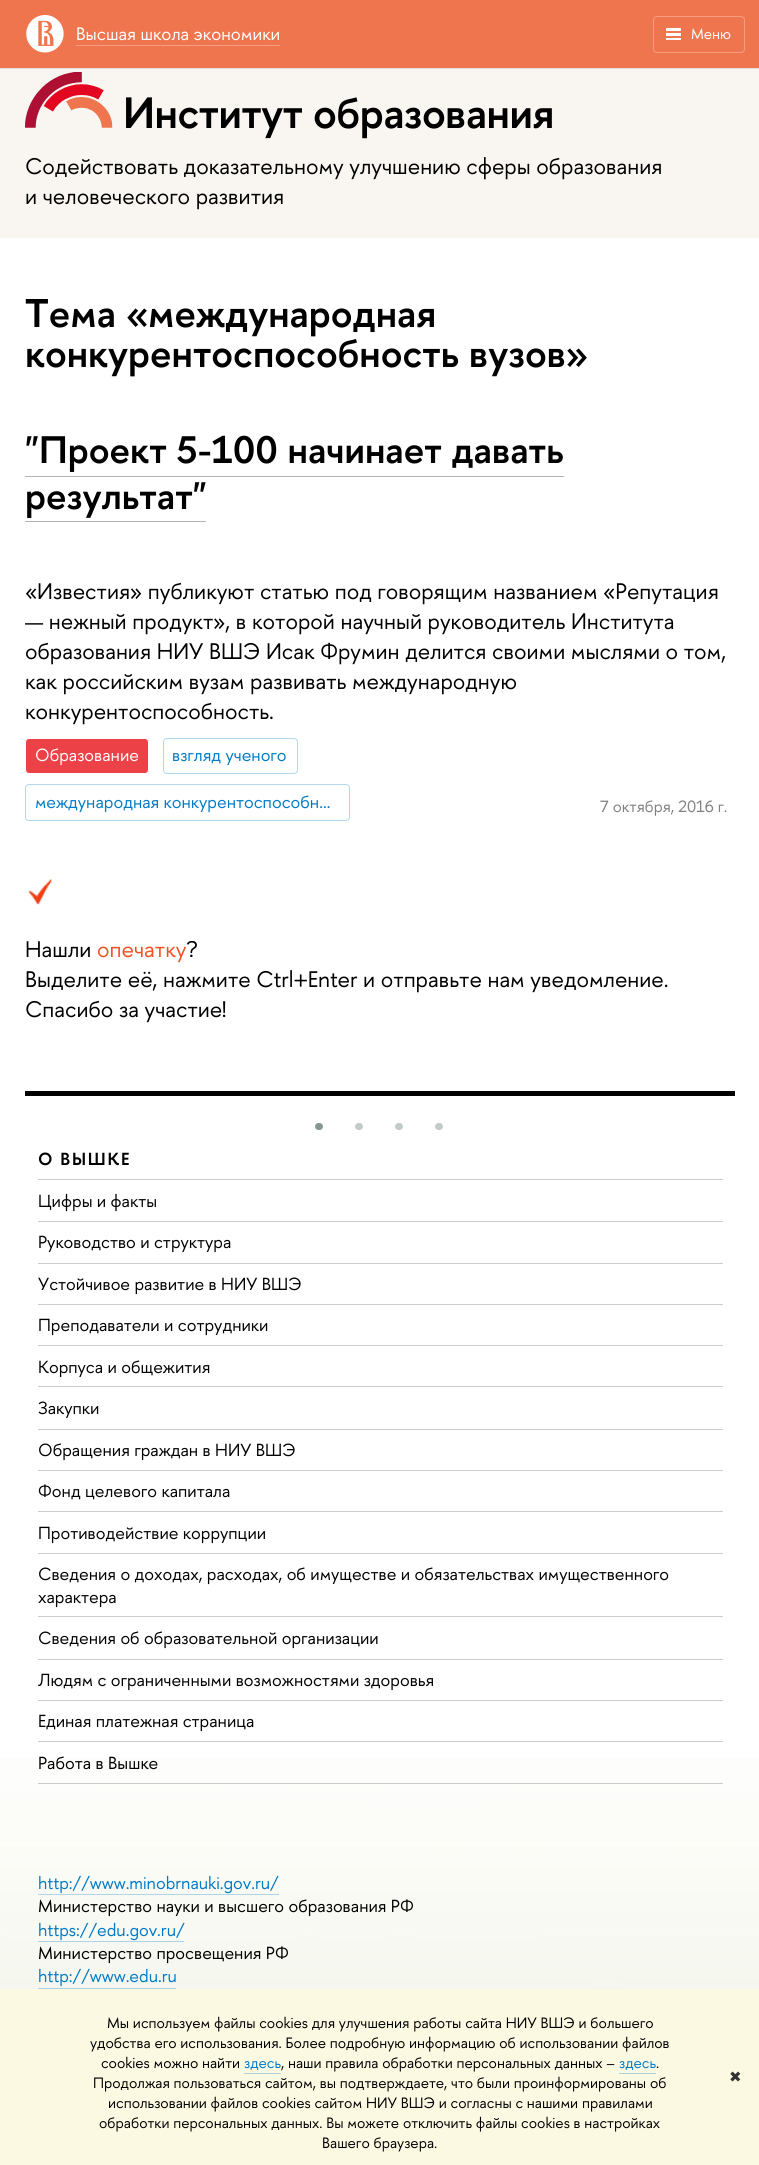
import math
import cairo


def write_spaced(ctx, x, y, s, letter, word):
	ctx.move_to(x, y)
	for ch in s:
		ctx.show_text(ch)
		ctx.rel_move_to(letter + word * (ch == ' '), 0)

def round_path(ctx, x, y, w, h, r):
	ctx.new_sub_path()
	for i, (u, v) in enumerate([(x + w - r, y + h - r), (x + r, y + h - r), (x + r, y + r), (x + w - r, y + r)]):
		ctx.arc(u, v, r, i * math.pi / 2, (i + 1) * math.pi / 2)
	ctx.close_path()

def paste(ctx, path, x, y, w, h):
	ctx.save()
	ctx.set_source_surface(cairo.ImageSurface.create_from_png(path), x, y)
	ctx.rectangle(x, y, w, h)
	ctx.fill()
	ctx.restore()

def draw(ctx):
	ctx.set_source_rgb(1, 1, 1)
	ctx.paint()
	paste(ctx, 'media/1.png', 0, 1758, 759, 231)
	ctx.set_source_rgb(0.973, 0.961, 0.949)
	ctx.rectangle(0, 69, 759, 169)
	ctx.fill()
	ctx.set_source_rgb(0.933, 0.459, 0.302)
	ctx.rectangle(0, 0, 759, 68)
	ctx.fill()
	ctx.set_source_rgb(0.89, 0.882, 0.871)
	ctx.rectangle(0, 68, 759, 1)
	ctx.fill()
	paste(ctx, 'media/2.png', 26, 15, 38, 38)
	ctx.set_source_rgb(0.953, 0.62, 0.51)
	ctx.rectangle(76, 45, 204, 1)
	ctx.fill()
	ctx.select_font_face('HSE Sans')
	ctx.set_font_size(18)
	ctx.set_source_rgb(1, 1, 1)
	ctx.move_to(76, 40)
	ctx.show_text('Высшая школа экономики')
	round_path(ctx, 653.5, 16.5, 91, 36, 3.5)
	ctx.set_source_rgb(0.953, 0.62, 0.51)
	ctx.set_line_width(1)
	ctx.stroke()
	ctx.set_source_rgb(1, 1, 1)
	ctx.rectangle(666, 28, 15, 3)
	ctx.rectangle(666, 33, 15, 3)
	ctx.rectangle(666, 38, 15, 2)
	ctx.fill()
	ctx.set_font_size(15)
	ctx.move_to(691, 39)
	ctx.show_text('Меню')
	paste(ctx, 'media/3.png', 25, 72, 88, 56)
	ctx.select_font_face('HSE Sans SemiBold')
	ctx.set_font_size(43.75)
	ctx.set_source_rgb(0, 0, 0)
	write_spaced(ctx, 123, 128, 'Институт образования', -0.4, 0)
	ctx.select_font_face('HSE Sans')
	ctx.set_font_size(22.5)
	ctx.move_to(25, 174)
	ctx.show_text('Содействовать доказательному улучшению сферы образования')
	ctx.move_to(25, 204)
	ctx.show_text('и человеческого развития')
	ctx.select_font_face('HSE Sans SemiBold')
	ctx.set_font_size(40)
	ctx.move_to(25, 327)
	ctx.show_text('Тема «международная')
	ctx.move_to(25, 367)
	ctx.show_text('конкурентоспособность вузов»')
	ctx.set_font_size(38.25)
	ctx.move_to(25, 463)
	ctx.show_text('"Проект 5-100 начинает давать')
	ctx.set_source_rgb(0.702, 0.702, 0.702)
	ctx.rectangle(25, 476, 539, 1)
	ctx.fill()
	ctx.set_source_rgb(0, 0, 0)
	ctx.move_to(25, 509)
	ctx.show_text('результат"')
	ctx.set_source_rgb(0.702, 0.702, 0.702)
	ctx.rectangle(25, 521, 181, 1)
	ctx.fill()
	ctx.select_font_face('HSE Sans')
	ctx.set_font_size(22.5)
	ctx.set_source_rgb(0, 0, 0)
	for x, y, s in [
		(25, 599, '«Известия» публикуют статью под говорящим названием «Репутация'),
		(25, 629, '— нежный продукт», в которой научный руководитель Института'),
		(25, 659, 'образования НИУ ВШЭ Исак Фрумин делится своими мыслями о том,'),
		(25, 689, 'как российским вузам развивать международную'),
		(25, 719, 'конкурентоспособность.'),
	]:
		ctx.move_to(x, y)
		ctx.show_text(s)
	ctx.set_source_rgb(0.922, 0.255, 0.275)
	round_path(ctx, 25.5, 738.5, 123, 35, 3.5)
	ctx.fill_preserve()
	ctx.set_source_rgb(1, 1, 1)
	ctx.stroke()
	ctx.set_font_size(17.5)
	ctx.move_to(35, 761)
	ctx.show_text('Образование')
	round_path(ctx, 163.5, 738.5, 134, 35, 3.5)
	ctx.set_source_rgb(0.702, 0.843, 0.933)
	ctx.stroke()
	ctx.set_source_rgb(0, 0.478, 0.773)
	ctx.move_to(172, 761)
	ctx.show_text('взгляд ученого')
	round_path(ctx, 25.5, 784.5, 324, 36, 3.5)
	ctx.set_source_rgb(0.702, 0.843, 0.933)
	ctx.stroke()
	ctx.set_source_rgb(0, 0.478, 0.773)
	ctx.move_to(35, 808)
	ctx.show_text('международная конкурентоспособн…')
	ctx.set_font_size(16.25)
	ctx.set_source_rgb(0.502, 0.502, 0.502)
	ctx.move_to(600, 812)
	ctx.show_text('7 октября, 2016 г.')
	paste(ctx, 'media/4.png', 28, 878, 24, 27)
	ctx.set_font_size(22.5)
	ctx.set_source_rgb(0, 0, 0)
	ctx.move_to(25, 957)
	ctx.show_text('Нашли')
	ctx.set_source_rgb(0.953, 0.314, 0.137)
	ctx.move_to(97, 957)
	ctx.show_text('опечатку')
	ctx.set_source_rgb(0, 0, 0)
	for x, y, s in [
		(186, 957, '?'),
		(25, 987, 'Выделите её, нажмите Ctrl+Enter и отправьте нам уведомление.'),
		(25, 1017, 'Спасибо за участие!'),
	]:
		ctx.move_to(x, y)
		ctx.show_text(s)
	ctx.rectangle(25, 1091, 710, 5)
	ctx.fill()
	ctx.set_source_rgb(0.525, 0.592, 0.569)
	round_path(ctx, 315, 1123, 8, 7, 3.5)
	ctx.fill()
	ctx.set_source_rgb(0.765, 0.796, 0.784)
	round_path(ctx, 355, 1123, 8, 7, 3.5)
	ctx.fill()
	round_path(ctx, 395, 1123, 8, 7, 3.5)
	ctx.fill()
	round_path(ctx, 435, 1123, 8, 7, 3.5)
	ctx.fill()
	ctx.set_source_rgb(0.8, 0.8, 0.8)
	ctx.rectangle(38, 1179, 685, 1)
	ctx.fill()
	ctx.select_font_face('HSE Sans SemiBold')
	ctx.set_font_size(17.5)
	ctx.set_source_rgb(0, 0, 0)
	write_spaced(ctx, 38, 1165, 'О ВЫШКЕ', 1.75, 0)
	ctx.set_source_rgb(0.8, 0.8, 0.8)
	ctx.rectangle(38, 1221, 685, 1)
	ctx.fill()
	ctx.select_font_face('HSE Sans')
	ctx.set_source_rgb(0, 0, 0)
	ctx.move_to(38, 1207)
	ctx.show_text('Цифры и факты')
	ctx.set_source_rgb(0.8, 0.8, 0.8)
	ctx.rectangle(38, 1263, 685, 1)
	ctx.fill()
	ctx.set_source_rgb(0, 0, 0)
	ctx.move_to(38, 1248)
	ctx.show_text('Руководство и структура')
	ctx.set_source_rgb(0.8, 0.8, 0.8)
	ctx.rectangle(38, 1304, 685, 1)
	ctx.fill()
	ctx.set_source_rgb(0, 0, 0)
	ctx.move_to(38, 1290)
	ctx.show_text('Устойчивое развитие в НИУ ВШЭ')
	ctx.set_source_rgb(0.8, 0.8, 0.8)
	ctx.rectangle(38, 1345, 685, 1)
	ctx.fill()
	ctx.set_source_rgb(0, 0, 0)
	ctx.move_to(38, 1331)
	ctx.show_text('Преподаватели и сотрудники')
	ctx.set_source_rgb(0.8, 0.8, 0.8)
	ctx.rectangle(38, 1386, 685, 1)
	ctx.fill()
	ctx.set_source_rgb(0, 0, 0)
	ctx.move_to(38, 1373)
	ctx.show_text('Корпуса и общежития')
	ctx.set_source_rgb(0.8, 0.8, 0.8)
	ctx.rectangle(38, 1429, 685, 1)
	ctx.fill()
	ctx.set_source_rgb(0, 0, 0)
	ctx.move_to(38, 1414)
	ctx.show_text('Закупки')
	ctx.set_source_rgb(0.8, 0.8, 0.8)
	ctx.rectangle(38, 1470, 685, 1)
	ctx.fill()
	ctx.set_source_rgb(0, 0, 0)
	ctx.move_to(38, 1456)
	ctx.show_text('Обращения граждан в НИУ ВШЭ')
	ctx.set_source_rgb(0.8, 0.8, 0.8)
	ctx.rectangle(38, 1511, 685, 1)
	ctx.fill()
	ctx.set_source_rgb(0, 0, 0)
	ctx.move_to(38, 1497)
	ctx.show_text('Фонд целевого капитала')
	ctx.set_source_rgb(0.8, 0.8, 0.8)
	ctx.rectangle(38, 1553, 685, 1)
	ctx.fill()
	ctx.set_source_rgb(0, 0, 0)
	ctx.move_to(38, 1539)
	ctx.show_text('Противодействие коррупции')
	ctx.set_source_rgb(0.8, 0.8, 0.8)
	ctx.rectangle(38, 1616, 685, 1)
	ctx.fill()
	ctx.set_source_rgb(0, 0, 0)
	ctx.move_to(38, 1580)
	ctx.show_text('Сведения о доходах, расходах, об имуществе и обязательствах имущественного')
	ctx.move_to(38, 1603)
	ctx.show_text('характера')
	ctx.set_source_rgb(0.8, 0.8, 0.8)
	ctx.rectangle(38, 1659, 685, 1)
	ctx.fill()
	ctx.set_source_rgb(0, 0, 0)
	ctx.move_to(38, 1644)
	ctx.show_text('Сведения об образовательной организации')
	ctx.set_source_rgb(0.8, 0.8, 0.8)
	ctx.rectangle(38, 1700, 685, 1)
	ctx.fill()
	ctx.set_source_rgb(0, 0, 0)
	ctx.move_to(38, 1686)
	ctx.show_text('Людям с ограниченными возможностями здоровья')
	ctx.set_source_rgb(0.8, 0.8, 0.8)
	ctx.rectangle(38, 1741, 685, 1)
	ctx.fill()
	ctx.set_source_rgb(0, 0, 0)
	ctx.move_to(38, 1727)
	ctx.show_text('Единая платежная страница')
	ctx.set_source_rgb(0.792, 0.796, 0.784)
	ctx.rectangle(38, 1783, 685, 1)
	ctx.fill()
	ctx.set_source_rgb(0, 0, 0)
	ctx.move_to(38, 1769)
	ctx.show_text('Работа в Вышке')
	ctx.set_source_rgb(0, 0.478, 0.773)
	ctx.move_to(38, 1889)
	ctx.show_text('http://www.minobrnauki.gov.ru/')
	ctx.set_source_rgb(0.682, 0.831, 0.902)
	ctx.rectangle(38, 1894, 241, 1)
	ctx.fill()
	ctx.set_source_rgb(0, 0, 0)
	ctx.move_to(38, 1912)
	ctx.show_text('Министерство науки и высшего образования РФ')
	ctx.set_source_rgb(0, 0.478, 0.773)
	ctx.move_to(38, 1936)
	ctx.show_text('https://edu.gov.ru/')
	ctx.set_source_rgb(0.678, 0.824, 0.898)
	ctx.rectangle(38, 1941, 146, 1)
	ctx.fill()
	ctx.set_source_rgb(0, 0, 0)
	ctx.move_to(38, 1959)
	ctx.show_text('Министерство просвещения РФ')
	ctx.set_source_rgb(0, 0.478, 0.773)
	ctx.move_to(38, 1982)
	ctx.show_text('http://www.edu.ru')
	ctx.set_source_rgb(0.675, 0.82, 0.89)
	ctx.rectangle(38, 1988, 138, 1)
	ctx.fill()
	ctx.set_source_rgb(0.988, 0.973, 0.89)
	ctx.rectangle(0, 1989, 759, 176)
	ctx.fill()
	ctx.set_font_size(15)
	ctx.set_source_rgb(0, 0, 0)
	for x, y, s in [
		(107, 2028, 'Мы используем файлы cookies для улучшения работы сайта НИУ ВШЭ и большего'),
		(90, 2048, 'удобства его использования. Более подробную информацию об использовании файлов'),
		(101, 2068, 'cookies можно найти'),
	]:
		ctx.move_to(x, y)
		ctx.show_text(s)
	ctx.set_source_rgb(0, 0.478, 0.773)
	ctx.move_to(244, 2068)
	ctx.show_text('здесь')
	ctx.set_source_rgb(0.69, 0.824, 0.855)
	ctx.rectangle(244, 2073, 37, 1)
	ctx.fill()
	ctx.set_source_rgb(0, 0, 0)
	ctx.move_to(281, 2068)
	ctx.show_text(', наши правила обработки персональных данных –')
	ctx.set_source_rgb(0, 0.478, 0.773)
	ctx.move_to(619, 2068)
	ctx.show_text('здесь')
	ctx.set_source_rgb(0.69, 0.824, 0.855)
	ctx.rectangle(619, 2073, 37, 1)
	ctx.fill()
	ctx.set_source_rgb(0, 0, 0)
	for x, y, s in [
		(656, 2068, '.'),
		(93, 2088, 'Продолжая пользоваться сайтом, вы подтверждаете, что были проинформированы об'),
		(108, 2108, 'использовании файлов cookies сайтом НИУ ВШЭ и согласны с нашими правилами'),
		(99, 2128, 'обработки персональных данных. Вы можете отключить файлы cookies в настройках'),
		(322, 2148, 'Вашего браузера.'),
	]:
		ctx.move_to(x, y)
		ctx.show_text(s)
	ctx.select_font_face('DejaVu Sans')
	ctx.set_source_rgb(0.2, 0.2, 0.2)
	ctx.move_to(729, 2082)
	ctx.show_text('✖')


surface = cairo.ImageSurface(cairo.FORMAT_RGB24, 759, 2165)
ctx = cairo.Context(surface)
options = cairo.FontOptions()
options.set_hint_metrics(cairo.HINT_METRICS_OFF)
options.set_hint_style(cairo.HINT_STYLE_NONE)
ctx.set_font_options(options)
ctx.set_miter_limit(4)
draw(ctx)
surface.write_to_png('image.png')
